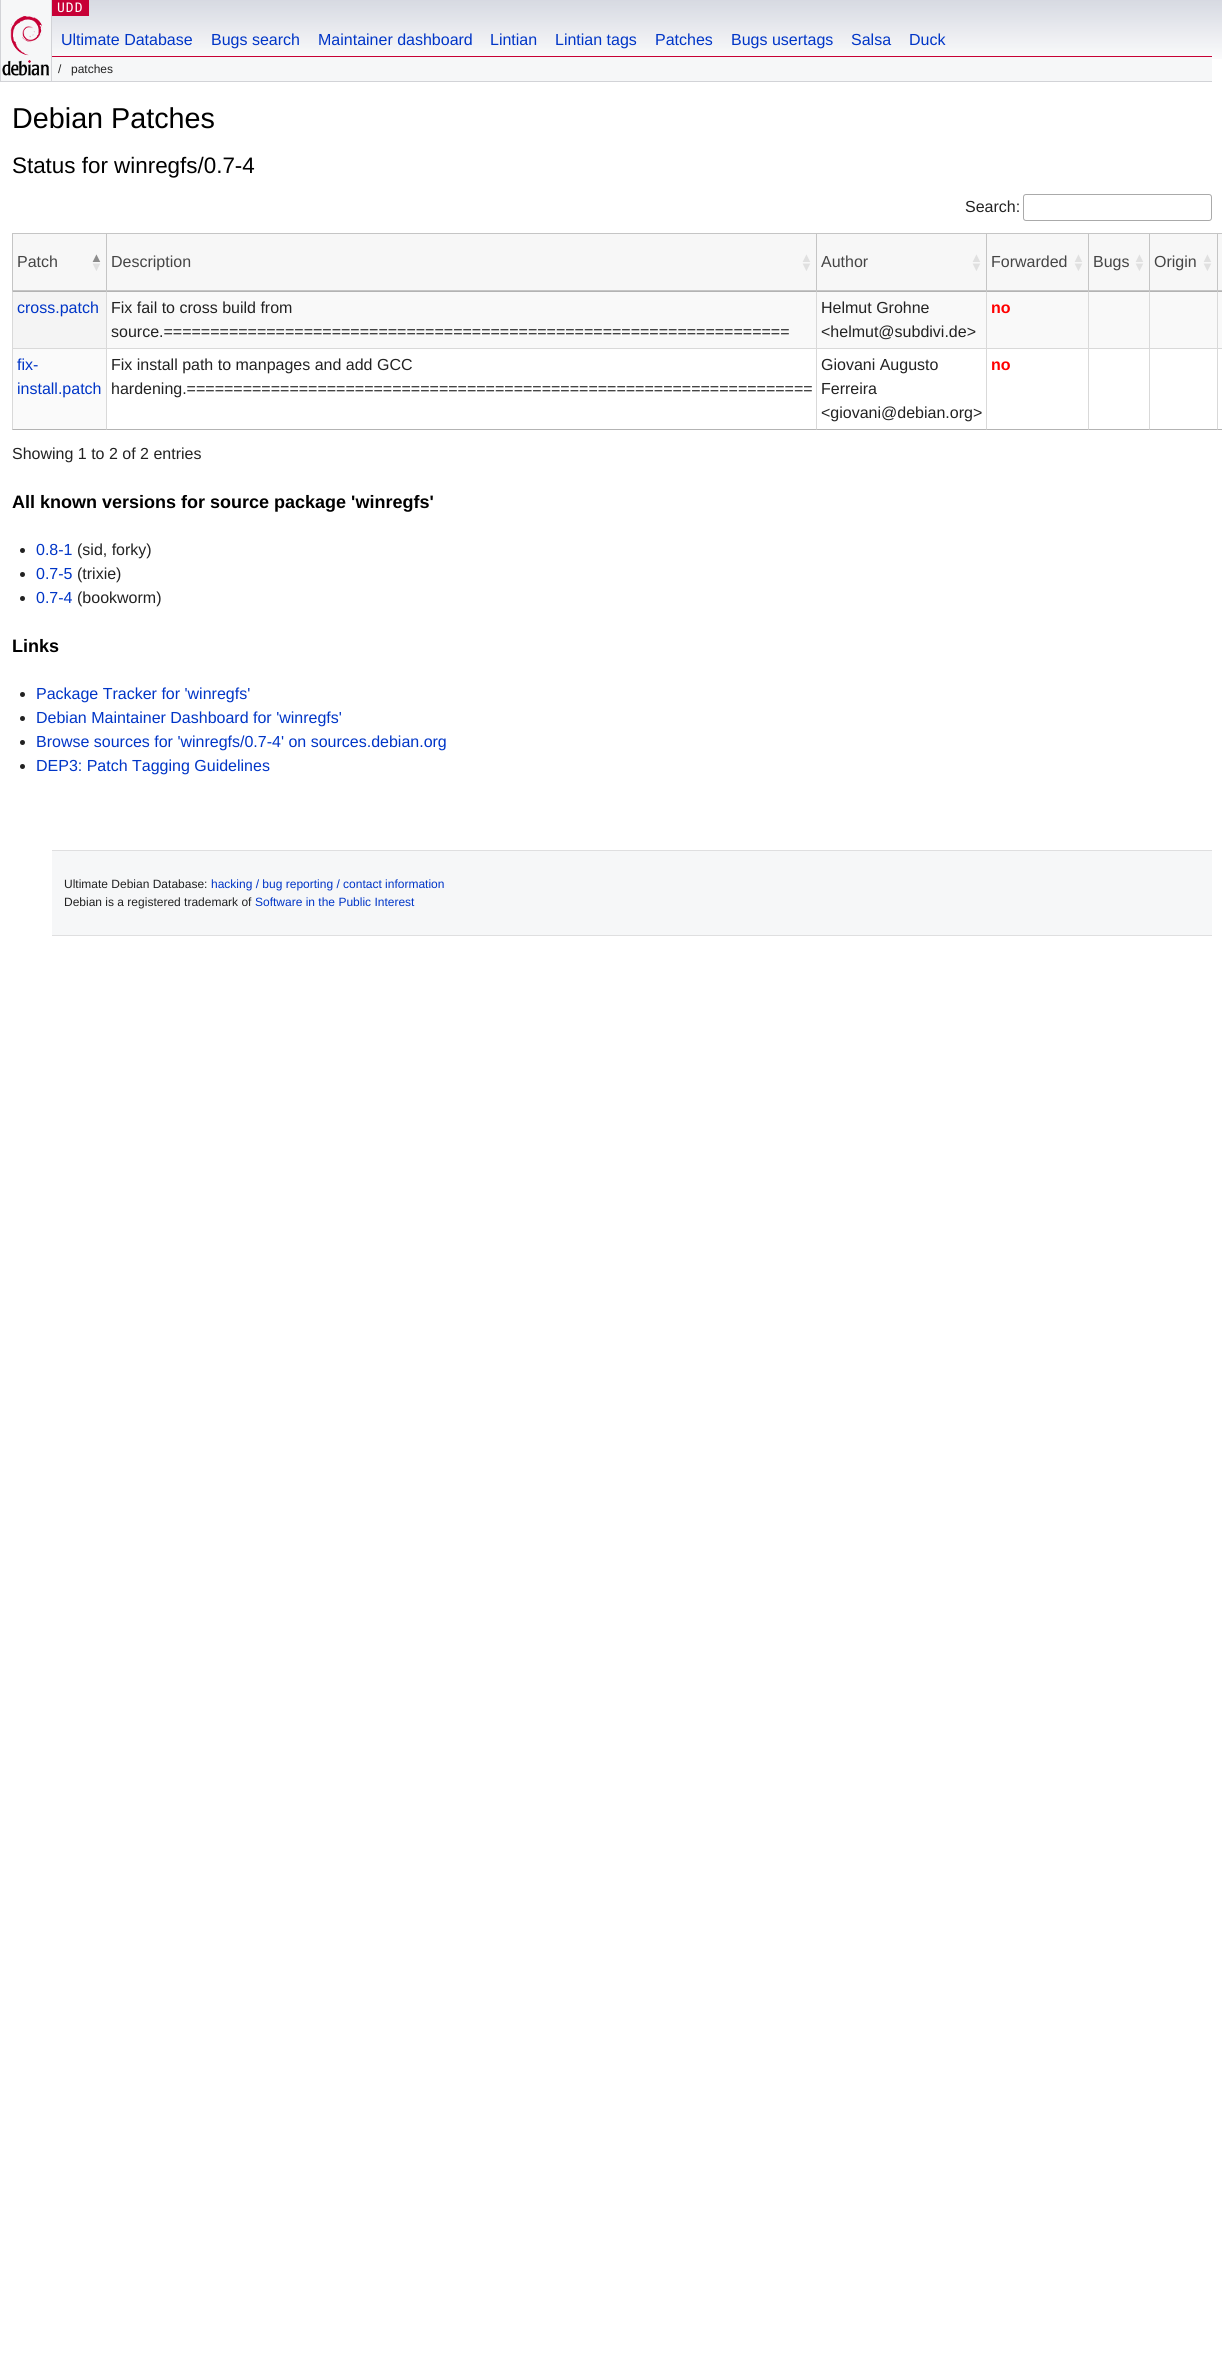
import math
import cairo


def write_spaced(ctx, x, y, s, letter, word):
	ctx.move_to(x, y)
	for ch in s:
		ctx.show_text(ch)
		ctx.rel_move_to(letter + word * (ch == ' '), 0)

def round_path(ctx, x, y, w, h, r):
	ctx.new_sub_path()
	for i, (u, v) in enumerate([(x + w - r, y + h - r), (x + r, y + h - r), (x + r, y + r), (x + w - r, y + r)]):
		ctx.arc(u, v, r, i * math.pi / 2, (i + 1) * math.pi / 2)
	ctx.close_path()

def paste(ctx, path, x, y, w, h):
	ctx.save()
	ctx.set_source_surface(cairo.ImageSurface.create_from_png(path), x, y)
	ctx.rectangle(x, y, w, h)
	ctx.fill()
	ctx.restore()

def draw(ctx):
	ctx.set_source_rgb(1, 1, 1)
	ctx.paint()
	paste(ctx, 'media/1.png', 52, 0, 1170, 59)
	ctx.set_source_rgb(0.961, 0.965, 0.969)
	ctx.rectangle(1, 0, 50, 81)
	ctx.fill()
	ctx.set_source_rgb(0.824, 0.827, 0.843)
	ctx.rectangle(51, 0, 1, 82)
	ctx.rectangle(0, 81, 52, 1)
	ctx.rectangle(0, 0, 1, 82)
	ctx.fill()
	paste(ctx, 'media/2.png', 2, 16, 47, 60)
	ctx.set_source_rgb(0.78, 0, 0.212)
	ctx.rectangle(52, 0, 37, 16)
	ctx.fill()
	ctx.select_font_face('DejaVu Sans Mono')
	ctx.set_font_size(13)
	ctx.set_source_rgb(1, 1, 1)
	write_spaced(ctx, 57, 12, 'UDD', 1, 0)
	ctx.set_source_rgb(0.78, 0, 0.212)
	ctx.rectangle(52, 56, 1160, 1)
	ctx.fill()
	ctx.select_font_face('Liberation Sans')
	ctx.set_font_size(16)
	ctx.set_source_rgb(0, 0.208, 0.78)
	for x, y, s in [
		(61, 45, 'Ultimate Database'),
		(211, 45, 'Bugs search'),
		(318, 45, 'Maintainer dashboard'),
		(490, 45, 'Lintian'),
		(555, 45, 'Lintian tags'),
		(655, 45, 'Patches'),
		(731, 45, 'Bugs usertags'),
		(851, 45, 'Salsa'),
		(909, 45, 'Duck'),
	]:
		ctx.move_to(x, y)
		ctx.show_text(s)
	ctx.set_source_rgb(0.961, 0.965, 0.969)
	ctx.rectangle(52, 57, 1160, 24)
	ctx.fill()
	ctx.set_source_rgb(0.824, 0.827, 0.843)
	ctx.rectangle(52, 81, 1160, 1)
	ctx.fill()
	ctx.set_font_size(12)
	ctx.set_source_rgb(0.133, 0.133, 0.133)
	ctx.move_to(58, 73)
	ctx.show_text('/')
	ctx.move_to(71, 73)
	ctx.show_text('patches')
	ctx.set_font_size(28.75)
	ctx.set_source_rgb(0, 0, 0)
	ctx.move_to(12, 128)
	ctx.show_text('Debian Patches')
	ctx.set_font_size(22.4)
	ctx.move_to(12, 173)
	ctx.show_text('Status for winregfs/0.7-4')
	ctx.set_font_size(16)
	ctx.set_source_rgb(0.133, 0.133, 0.133)
	ctx.move_to(965, 212)
	ctx.show_text('Search:')
	round_path(ctx, 1023.5, 194.5, 188, 26, 2.5)
	ctx.set_source_rgb(0.667, 0.667, 0.667)
	ctx.set_line_width(1)
	ctx.stroke()
	ctx.set_source_rgb(0.965, 0.965, 0.965)
	ctx.rectangle(12.5, 233.5, 94, 57)
	ctx.fill_preserve()
	ctx.set_source_rgb(0.773, 0.773, 0.773)
	ctx.stroke()
	ctx.set_source_rgb(0.271, 0.271, 0.271)
	ctx.move_to(17, 267)
	ctx.show_text('Patch')
	ctx.set_font_size(13)
	ctx.set_source_rgb(0.549, 0.549, 0.549)
	ctx.move_to(90, 262)
	ctx.show_text('▲')
	ctx.set_source_rgb(0.878, 0.878, 0.878)
	ctx.move_to(90, 271)
	ctx.show_text('▼')
	ctx.set_source_rgb(0.965, 0.965, 0.965)
	ctx.rectangle(107, 234, 709, 56)
	ctx.fill()
	ctx.set_source_rgb(0.773, 0.773, 0.773)
	ctx.rectangle(107, 233, 1115, 1)
	ctx.rectangle(816, 233, 1, 58)
	ctx.rectangle(107, 290, 710, 1)
	ctx.fill()
	ctx.set_font_size(16)
	ctx.set_source_rgb(0.271, 0.271, 0.271)
	ctx.move_to(111, 267)
	ctx.show_text('Description')
	ctx.set_font_size(13)
	ctx.set_source_rgb(0.878, 0.878, 0.878)
	ctx.move_to(800, 262)
	ctx.show_text('▲')
	ctx.move_to(800, 271)
	ctx.show_text('▼')
	ctx.set_source_rgb(0.965, 0.965, 0.965)
	ctx.rectangle(817, 234, 169, 56)
	ctx.fill()
	ctx.set_source_rgb(0.773, 0.773, 0.773)
	ctx.rectangle(986, 233, 1, 58)
	ctx.rectangle(817, 290, 170, 1)
	ctx.fill()
	ctx.set_font_size(16)
	ctx.set_source_rgb(0.271, 0.271, 0.271)
	ctx.move_to(821, 267)
	ctx.show_text('Author')
	ctx.set_font_size(13)
	ctx.set_source_rgb(0.878, 0.878, 0.878)
	ctx.move_to(970, 262)
	ctx.show_text('▲')
	ctx.move_to(970, 271)
	ctx.show_text('▼')
	ctx.set_source_rgb(0.965, 0.965, 0.965)
	ctx.rectangle(987, 234, 101, 56)
	ctx.fill()
	ctx.set_source_rgb(0.773, 0.773, 0.773)
	ctx.rectangle(1088, 233, 1, 58)
	ctx.rectangle(987, 290, 102, 1)
	ctx.fill()
	ctx.set_font_size(16)
	ctx.set_source_rgb(0.271, 0.271, 0.271)
	ctx.move_to(991, 267)
	ctx.show_text('Forwarded')
	ctx.set_font_size(13)
	ctx.set_source_rgb(0.878, 0.878, 0.878)
	ctx.move_to(1072, 262)
	ctx.show_text('▲')
	ctx.move_to(1072, 271)
	ctx.show_text('▼')
	ctx.set_source_rgb(0.965, 0.965, 0.965)
	ctx.rectangle(1089, 234, 60, 56)
	ctx.fill()
	ctx.set_source_rgb(0.773, 0.773, 0.773)
	ctx.rectangle(1149, 233, 1, 58)
	ctx.rectangle(1089, 290, 61, 1)
	ctx.fill()
	ctx.set_font_size(16)
	ctx.set_source_rgb(0.271, 0.271, 0.271)
	ctx.move_to(1093, 267)
	ctx.show_text('Bugs')
	ctx.set_font_size(13)
	ctx.set_source_rgb(0.878, 0.878, 0.878)
	ctx.move_to(1133, 262)
	ctx.show_text('▲')
	ctx.move_to(1133, 271)
	ctx.show_text('▼')
	ctx.set_source_rgb(0.965, 0.965, 0.965)
	ctx.rectangle(1150, 234, 67, 56)
	ctx.fill()
	ctx.set_source_rgb(0.773, 0.773, 0.773)
	ctx.rectangle(1217, 233, 1, 58)
	ctx.rectangle(1150, 290, 72, 1)
	ctx.fill()
	ctx.set_font_size(16)
	ctx.set_source_rgb(0.271, 0.271, 0.271)
	ctx.move_to(1154, 267)
	ctx.show_text('Origin')
	ctx.set_font_size(13)
	ctx.set_source_rgb(0.878, 0.878, 0.878)
	ctx.move_to(1201, 262)
	ctx.show_text('▲')
	ctx.move_to(1201, 271)
	ctx.show_text('▼')
	ctx.set_source_rgb(0.965, 0.965, 0.965)
	ctx.rectangle(1218, 234, 4, 56)
	ctx.fill()
	ctx.set_source_rgb(0.957, 0.957, 0.957)
	ctx.rectangle(13, 292, 93, 56)
	ctx.fill()
	ctx.set_source_rgb(0.702, 0.702, 0.702)
	ctx.new_path()
	ctx.move_to(12, 291)
	ctx.line_to(107, 291)
	ctx.line_to(106, 292)
	ctx.line_to(13, 292)
	ctx.close_path()
	ctx.fill()
	ctx.set_source_rgba(0, 0, 0, 0.15)
	ctx.new_path()
	ctx.move_to(107, 291)
	ctx.line_to(107, 348)
	ctx.line_to(106, 348)
	ctx.line_to(106, 292)
	ctx.close_path()
	ctx.fill()
	ctx.new_path()
	ctx.move_to(12, 348)
	ctx.line_to(12, 291)
	ctx.line_to(13, 292)
	ctx.line_to(13, 348)
	ctx.close_path()
	ctx.fill()
	ctx.set_font_size(16)
	ctx.set_source_rgb(0, 0.208, 0.78)
	ctx.move_to(17, 313)
	ctx.show_text('cross.patch')
	ctx.set_source_rgb(0.976, 0.976, 0.976)
	ctx.rectangle(107, 292, 709, 56)
	ctx.fill()
	ctx.set_source_rgb(0.702, 0.702, 0.702)
	ctx.new_path()
	ctx.move_to(107, 291)
	ctx.line_to(817, 291)
	ctx.line_to(816, 292)
	ctx.line_to(107, 292)
	ctx.close_path()
	ctx.fill()
	ctx.set_source_rgba(0, 0, 0, 0.15)
	ctx.new_path()
	ctx.move_to(817, 291)
	ctx.line_to(817, 348)
	ctx.line_to(816, 348)
	ctx.line_to(816, 292)
	ctx.close_path()
	ctx.fill()
	ctx.set_source_rgb(0.133, 0.133, 0.133)
	ctx.move_to(111, 313)
	ctx.show_text('Fix fail to cross build from')
	ctx.move_to(111, 337)
	ctx.show_text('source.===================================================================')
	ctx.set_source_rgb(0.976, 0.976, 0.976)
	ctx.rectangle(817, 292, 169, 56)
	ctx.fill()
	ctx.set_source_rgb(0.702, 0.702, 0.702)
	ctx.new_path()
	ctx.move_to(817, 291)
	ctx.line_to(987, 291)
	ctx.line_to(986, 292)
	ctx.line_to(817, 292)
	ctx.close_path()
	ctx.fill()
	ctx.set_source_rgba(0, 0, 0, 0.15)
	ctx.new_path()
	ctx.move_to(987, 291)
	ctx.line_to(987, 348)
	ctx.line_to(986, 348)
	ctx.line_to(986, 292)
	ctx.close_path()
	ctx.fill()
	ctx.set_source_rgb(0.133, 0.133, 0.133)
	ctx.move_to(821, 313)
	ctx.show_text('Helmut Grohne')
	ctx.move_to(821, 337)
	ctx.show_text('<helmut@subdivi.de>')
	ctx.set_source_rgb(0.976, 0.976, 0.976)
	ctx.rectangle(987, 292, 101, 56)
	ctx.fill()
	ctx.set_source_rgb(0.702, 0.702, 0.702)
	ctx.new_path()
	ctx.move_to(987, 291)
	ctx.line_to(1089, 291)
	ctx.line_to(1088, 292)
	ctx.line_to(987, 292)
	ctx.close_path()
	ctx.fill()
	ctx.set_source_rgba(0, 0, 0, 0.15)
	ctx.new_path()
	ctx.move_to(1089, 291)
	ctx.line_to(1089, 348)
	ctx.line_to(1088, 348)
	ctx.line_to(1088, 292)
	ctx.close_path()
	ctx.fill()
	ctx.select_font_face('Liberation Sans', cairo.FONT_SLANT_NORMAL, cairo.FONT_WEIGHT_BOLD)
	ctx.set_source_rgb(1, 0, 0)
	ctx.move_to(991, 313)
	ctx.show_text('no')
	ctx.set_source_rgb(0.976, 0.976, 0.976)
	ctx.rectangle(1089, 292, 60, 56)
	ctx.fill()
	ctx.set_source_rgb(0.702, 0.702, 0.702)
	ctx.new_path()
	ctx.move_to(1089, 291)
	ctx.line_to(1150, 291)
	ctx.line_to(1149, 292)
	ctx.line_to(1089, 292)
	ctx.close_path()
	ctx.fill()
	ctx.set_source_rgba(0, 0, 0, 0.15)
	ctx.new_path()
	ctx.move_to(1150, 291)
	ctx.line_to(1150, 348)
	ctx.line_to(1149, 348)
	ctx.line_to(1149, 292)
	ctx.close_path()
	ctx.fill()
	ctx.set_source_rgb(0.976, 0.976, 0.976)
	ctx.rectangle(1150, 292, 67, 56)
	ctx.fill()
	ctx.set_source_rgb(0.702, 0.702, 0.702)
	ctx.new_path()
	ctx.move_to(1150, 291)
	ctx.line_to(1218, 291)
	ctx.line_to(1217, 292)
	ctx.line_to(1150, 292)
	ctx.close_path()
	ctx.fill()
	ctx.set_source_rgba(0, 0, 0, 0.15)
	ctx.new_path()
	ctx.move_to(1218, 291)
	ctx.line_to(1218, 348)
	ctx.line_to(1217, 348)
	ctx.line_to(1217, 292)
	ctx.close_path()
	ctx.fill()
	ctx.set_source_rgb(0.976, 0.976, 0.976)
	ctx.rectangle(1218, 292, 4, 56)
	ctx.fill()
	ctx.set_source_rgb(0.702, 0.702, 0.702)
	ctx.new_path()
	ctx.move_to(1218, 291)
	ctx.line_to(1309, 291)
	ctx.line_to(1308, 292)
	ctx.line_to(1218, 292)
	ctx.close_path()
	ctx.fill()
	ctx.set_source_rgb(0.98, 0.98, 0.98)
	ctx.rectangle(13, 349, 93, 80)
	ctx.fill()
	ctx.set_source_rgb(0.851, 0.851, 0.851)
	ctx.new_path()
	ctx.move_to(12, 348)
	ctx.line_to(107, 348)
	ctx.line_to(106, 349)
	ctx.line_to(13, 349)
	ctx.close_path()
	ctx.fill()
	ctx.set_source_rgba(0, 0, 0, 0.15)
	ctx.new_path()
	ctx.move_to(107, 348)
	ctx.line_to(107, 430)
	ctx.line_to(106, 429)
	ctx.line_to(106, 349)
	ctx.close_path()
	ctx.fill()
	ctx.set_source_rgba(0, 0, 0, 0.3)
	ctx.new_path()
	ctx.move_to(107, 430)
	ctx.line_to(12, 430)
	ctx.line_to(13, 429)
	ctx.line_to(106, 429)
	ctx.close_path()
	ctx.fill()
	ctx.set_source_rgba(0, 0, 0, 0.15)
	ctx.new_path()
	ctx.move_to(12, 430)
	ctx.line_to(12, 348)
	ctx.line_to(13, 349)
	ctx.line_to(13, 429)
	ctx.close_path()
	ctx.fill()
	ctx.select_font_face('Liberation Sans')
	ctx.set_source_rgb(0, 0.208, 0.78)
	ctx.move_to(17, 370)
	ctx.show_text('fix-')
	ctx.move_to(17, 394)
	ctx.show_text('install.patch')
	ctx.set_source_rgb(0.851, 0.851, 0.851)
	ctx.new_path()
	ctx.move_to(107, 348)
	ctx.line_to(817, 348)
	ctx.line_to(816, 349)
	ctx.line_to(107, 349)
	ctx.close_path()
	ctx.fill()
	ctx.set_source_rgba(0, 0, 0, 0.15)
	ctx.new_path()
	ctx.move_to(817, 348)
	ctx.line_to(817, 430)
	ctx.line_to(816, 429)
	ctx.line_to(816, 349)
	ctx.close_path()
	ctx.fill()
	ctx.set_source_rgba(0, 0, 0, 0.3)
	ctx.new_path()
	ctx.move_to(817, 430)
	ctx.line_to(107, 430)
	ctx.line_to(107, 429)
	ctx.line_to(816, 429)
	ctx.close_path()
	ctx.fill()
	ctx.set_source_rgb(0.133, 0.133, 0.133)
	ctx.move_to(111, 370)
	ctx.show_text('Fix install path to manpages and add GCC')
	ctx.move_to(111, 394)
	ctx.show_text('hardening.===================================================================')
	ctx.set_source_rgb(0.851, 0.851, 0.851)
	ctx.new_path()
	ctx.move_to(817, 348)
	ctx.line_to(987, 348)
	ctx.line_to(986, 349)
	ctx.line_to(817, 349)
	ctx.close_path()
	ctx.fill()
	ctx.set_source_rgba(0, 0, 0, 0.15)
	ctx.new_path()
	ctx.move_to(987, 348)
	ctx.line_to(987, 430)
	ctx.line_to(986, 429)
	ctx.line_to(986, 349)
	ctx.close_path()
	ctx.fill()
	ctx.set_source_rgba(0, 0, 0, 0.3)
	ctx.new_path()
	ctx.move_to(987, 430)
	ctx.line_to(817, 430)
	ctx.line_to(817, 429)
	ctx.line_to(986, 429)
	ctx.close_path()
	ctx.fill()
	ctx.set_source_rgb(0.133, 0.133, 0.133)
	for x, y, s in [
		(821, 370, 'Giovani Augusto'),
		(821, 394, 'Ferreira'),
		(821, 418, '<giovani@debian.org>'),
	]:
		ctx.move_to(x, y)
		ctx.show_text(s)
	ctx.set_source_rgb(0.851, 0.851, 0.851)
	ctx.new_path()
	ctx.move_to(987, 348)
	ctx.line_to(1089, 348)
	ctx.line_to(1088, 349)
	ctx.line_to(987, 349)
	ctx.close_path()
	ctx.fill()
	ctx.set_source_rgba(0, 0, 0, 0.15)
	ctx.new_path()
	ctx.move_to(1089, 348)
	ctx.line_to(1089, 430)
	ctx.line_to(1088, 429)
	ctx.line_to(1088, 349)
	ctx.close_path()
	ctx.fill()
	ctx.set_source_rgba(0, 0, 0, 0.3)
	ctx.new_path()
	ctx.move_to(1089, 430)
	ctx.line_to(987, 430)
	ctx.line_to(987, 429)
	ctx.line_to(1088, 429)
	ctx.close_path()
	ctx.fill()
	ctx.select_font_face('Liberation Sans', cairo.FONT_SLANT_NORMAL, cairo.FONT_WEIGHT_BOLD)
	ctx.set_source_rgb(1, 0, 0)
	ctx.move_to(991, 370)
	ctx.show_text('no')
	ctx.set_source_rgb(0.851, 0.851, 0.851)
	ctx.new_path()
	ctx.move_to(1089, 348)
	ctx.line_to(1150, 348)
	ctx.line_to(1149, 349)
	ctx.line_to(1089, 349)
	ctx.close_path()
	ctx.fill()
	ctx.set_source_rgba(0, 0, 0, 0.15)
	ctx.new_path()
	ctx.move_to(1150, 348)
	ctx.line_to(1150, 430)
	ctx.line_to(1149, 429)
	ctx.line_to(1149, 349)
	ctx.close_path()
	ctx.fill()
	ctx.set_source_rgba(0, 0, 0, 0.3)
	ctx.new_path()
	ctx.move_to(1150, 430)
	ctx.line_to(1089, 430)
	ctx.line_to(1089, 429)
	ctx.line_to(1149, 429)
	ctx.close_path()
	ctx.fill()
	ctx.set_source_rgb(0.851, 0.851, 0.851)
	ctx.new_path()
	ctx.move_to(1150, 348)
	ctx.line_to(1218, 348)
	ctx.line_to(1217, 349)
	ctx.line_to(1150, 349)
	ctx.close_path()
	ctx.fill()
	ctx.set_source_rgba(0, 0, 0, 0.15)
	ctx.new_path()
	ctx.move_to(1218, 348)
	ctx.line_to(1218, 430)
	ctx.line_to(1217, 429)
	ctx.line_to(1217, 349)
	ctx.close_path()
	ctx.fill()
	ctx.set_source_rgba(0, 0, 0, 0.3)
	ctx.new_path()
	ctx.move_to(1218, 430)
	ctx.line_to(1150, 430)
	ctx.line_to(1150, 429)
	ctx.line_to(1217, 429)
	ctx.close_path()
	ctx.fill()
	ctx.set_source_rgb(0.851, 0.851, 0.851)
	ctx.new_path()
	ctx.move_to(1218, 348)
	ctx.line_to(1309, 348)
	ctx.line_to(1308, 349)
	ctx.line_to(1218, 349)
	ctx.close_path()
	ctx.fill()
	ctx.set_source_rgb(0.702, 0.702, 0.702)
	ctx.new_path()
	ctx.move_to(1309, 430)
	ctx.line_to(1218, 430)
	ctx.line_to(1218, 429)
	ctx.line_to(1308, 429)
	ctx.close_path()
	ctx.fill()
	ctx.select_font_face('Liberation Sans')
	ctx.set_source_rgb(0.133, 0.133, 0.133)
	ctx.move_to(12, 459)
	ctx.show_text('Showing 1 to 2 of 2 entries')
	ctx.select_font_face('Liberation Sans', cairo.FONT_SLANT_NORMAL, cairo.FONT_WEIGHT_BOLD)
	ctx.set_font_size(18)
	ctx.set_source_rgb(0, 0, 0)
	ctx.move_to(12, 508)
	ctx.show_text('All known versions for source package \'winregfs\'')
	ctx.set_source_rgb(0.133, 0.133, 0.133)
	ctx.new_path()
	ctx.arc(22.5, 550.5, 2.5, 0, 2 * math.pi)
	ctx.fill()
	ctx.select_font_face('Liberation Sans')
	ctx.set_font_size(16)
	ctx.set_source_rgb(0, 0.208, 0.78)
	ctx.move_to(36, 555)
	ctx.show_text('0.8-1')
	ctx.set_source_rgb(0.133, 0.133, 0.133)
	ctx.move_to(77, 555)
	ctx.show_text('(sid, forky)')
	ctx.new_path()
	ctx.arc(22.5, 574.5, 2.5, 0, 2 * math.pi)
	ctx.fill()
	ctx.set_source_rgb(0, 0.208, 0.78)
	ctx.move_to(36, 579)
	ctx.show_text('0.7-5')
	ctx.set_source_rgb(0.133, 0.133, 0.133)
	ctx.move_to(77, 579)
	ctx.show_text('(trixie)')
	ctx.new_path()
	ctx.arc(22.5, 598.5, 2.5, 0, 2 * math.pi)
	ctx.fill()
	ctx.set_source_rgb(0, 0.208, 0.78)
	ctx.move_to(36, 603)
	ctx.show_text('0.7-4')
	ctx.set_source_rgb(0.133, 0.133, 0.133)
	ctx.move_to(77, 603)
	ctx.show_text('(bookworm)')
	ctx.select_font_face('Liberation Sans', cairo.FONT_SLANT_NORMAL, cairo.FONT_WEIGHT_BOLD)
	ctx.set_font_size(18)
	ctx.set_source_rgb(0, 0, 0)
	ctx.move_to(12, 652)
	ctx.show_text('Links')
	ctx.set_source_rgb(0.133, 0.133, 0.133)
	ctx.new_path()
	ctx.arc(22.5, 694.5, 2.5, 0, 2 * math.pi)
	ctx.fill()
	ctx.select_font_face('Liberation Sans')
	ctx.set_font_size(16)
	ctx.set_source_rgb(0, 0.208, 0.78)
	ctx.move_to(36, 699)
	ctx.show_text('Package Tracker for \'winregfs\'')
	ctx.set_source_rgb(0.133, 0.133, 0.133)
	ctx.new_path()
	ctx.arc(22.5, 718.5, 2.5, 0, 2 * math.pi)
	ctx.fill()
	ctx.set_source_rgb(0, 0.208, 0.78)
	ctx.move_to(36, 723)
	ctx.show_text('Debian Maintainer Dashboard for \'winregfs\'')
	ctx.set_source_rgb(0.133, 0.133, 0.133)
	ctx.new_path()
	ctx.arc(22.5, 742.5, 2.5, 0, 2 * math.pi)
	ctx.fill()
	ctx.set_source_rgb(0, 0.208, 0.78)
	ctx.move_to(36, 747)
	ctx.show_text('Browse sources for \'winregfs/0.7-4\' on sources.debian.org')
	ctx.set_source_rgb(0.133, 0.133, 0.133)
	ctx.new_path()
	ctx.arc(22.5, 766.5, 2.5, 0, 2 * math.pi)
	ctx.fill()
	ctx.set_source_rgb(0, 0.208, 0.78)
	ctx.move_to(36, 771)
	ctx.show_text('DEP3: Patch Tagging Guidelines')
	ctx.set_source_rgb(0.961, 0.965, 0.969)
	ctx.rectangle(52, 851, 1160, 84)
	ctx.fill()
	ctx.set_source_rgb(0.875, 0.875, 0.878)
	ctx.rectangle(52, 850, 1160, 1)
	ctx.rectangle(52, 935, 1160, 1)
	ctx.fill()
	ctx.set_font_size(12)
	ctx.set_source_rgb(0.133, 0.133, 0.133)
	ctx.move_to(64, 888)
	ctx.show_text('Ultimate Debian Database:')
	ctx.set_source_rgb(0, 0.208, 0.78)
	ctx.move_to(211, 888)
	ctx.show_text('hacking / bug reporting / contact information')
	ctx.set_source_rgb(0.133, 0.133, 0.133)
	ctx.move_to(64, 906)
	ctx.show_text('Debian is a registered trademark of')
	ctx.set_source_rgb(0, 0.208, 0.78)
	ctx.move_to(255, 906)
	ctx.show_text('Software in the Public Interest')


surface = cairo.ImageSurface(cairo.FORMAT_RGB24, 1222, 2355)
ctx = cairo.Context(surface)
options = cairo.FontOptions()
options.set_hint_metrics(cairo.HINT_METRICS_OFF)
options.set_hint_style(cairo.HINT_STYLE_NONE)
ctx.set_font_options(options)
ctx.set_miter_limit(4)
draw(ctx)
surface.write_to_png('image.png')
